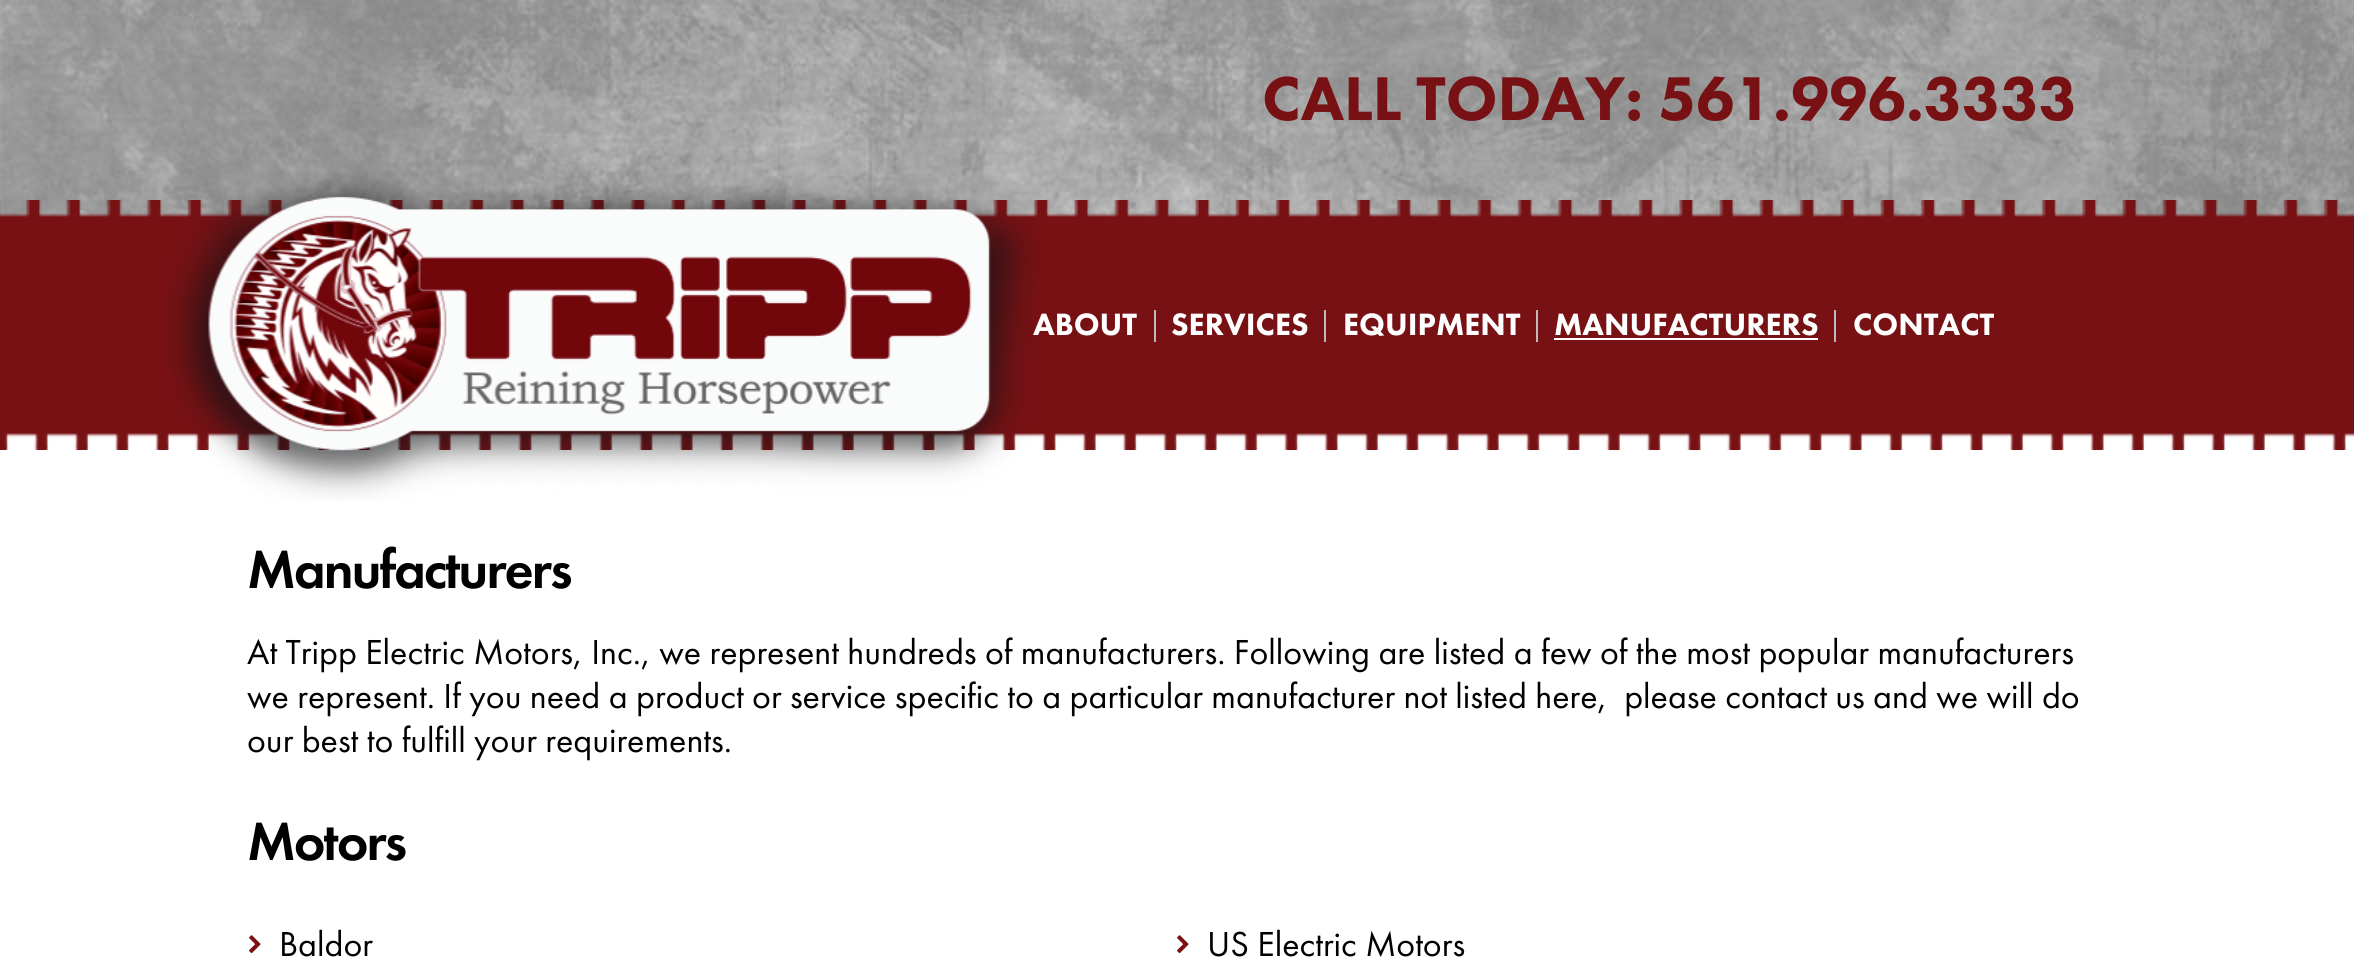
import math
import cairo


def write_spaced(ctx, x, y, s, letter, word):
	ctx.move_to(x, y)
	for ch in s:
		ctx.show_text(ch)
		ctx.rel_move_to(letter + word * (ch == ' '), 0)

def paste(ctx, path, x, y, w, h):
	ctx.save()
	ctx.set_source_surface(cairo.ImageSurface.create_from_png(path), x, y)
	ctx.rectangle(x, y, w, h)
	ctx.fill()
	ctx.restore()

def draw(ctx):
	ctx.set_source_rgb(1, 1, 1)
	ctx.paint()
	paste(ctx, 'media/1.png', 0, 0, 2354, 217)
	paste(ctx, 'media/2.png', 0, 200, 2354, 250)
	paste(ctx, 'media/3.png', 167, 172, 872, 329)
	ctx.select_font_face('Futura PT Black')
	ctx.set_font_size(64)
	ctx.set_source_rgb(0.467, 0.067, 0.078)
	ctx.move_to(1262, 120)
	ctx.show_text('CALL TODAY: 561.996.3333')
	ctx.set_source_rgb(0.733, 0.733, 0.733)
	ctx.rectangle(1154, 310, 2, 32)
	ctx.fill()
	ctx.set_font_size(32)
	ctx.set_source_rgb(1, 1, 1)
	ctx.move_to(1033, 335)
	ctx.show_text('ABOUT')
	ctx.set_source_rgb(0.733, 0.733, 0.733)
	ctx.rectangle(1324, 310, 2, 32)
	ctx.fill()
	ctx.set_source_rgb(1, 1, 1)
	ctx.move_to(1171, 335)
	ctx.show_text('SERVICES')
	ctx.set_source_rgb(0.733, 0.733, 0.733)
	ctx.rectangle(1536, 310, 2, 32)
	ctx.fill()
	ctx.set_source_rgb(1, 1, 1)
	ctx.move_to(1343, 335)
	ctx.show_text('EQUIPMENT')
	ctx.set_source_rgb(0.733, 0.733, 0.733)
	ctx.rectangle(1834, 310, 2, 32)
	ctx.fill()
	ctx.set_source_rgb(1, 1, 1)
	ctx.move_to(1554, 335)
	ctx.show_text('MANUFACTURERS')
	ctx.rectangle(1554, 338, 264, 2)
	ctx.fill()
	ctx.move_to(1853, 335)
	ctx.show_text('CONTACT')
	ctx.select_font_face('Futura PT Medium')
	ctx.set_font_size(56)
	ctx.set_source_rgb(0, 0, 0)
	write_spaced(ctx, 247, 588, 'Manufacturers', -2, 0)
	ctx.select_font_face('Futura PT')
	ctx.set_font_size(36)
	for x, y, s in [
		(247, 664, 'At Tripp Electric Motors, Inc., we represent hundreds of manufacturers. Following are listed a few of the most popular manufacturers'),
		(247, 708, 'we represent. If you need a product or service specific to a particular manufacturer not listed here,  please contact us and we will do'),
		(247, 752, 'our best to fulfill your requirements.'),
	]:
		ctx.move_to(x, y)
		ctx.show_text(s)
	ctx.select_font_face('Futura PT Medium')
	ctx.set_font_size(56)
	write_spaced(ctx, 247, 860, 'Motors', -2, 0)
	paste(ctx, 'media/4.png', 249, 935, 12, 19)
	ctx.select_font_face('Futura PT')
	ctx.set_font_size(36)
	ctx.move_to(279, 956)
	ctx.show_text('Baldor')
	paste(ctx, 'media/4.png', 1177, 935, 12, 19)
	ctx.move_to(1207, 956)
	ctx.show_text('US Electric Motors')


surface = cairo.ImageSurface(cairo.FORMAT_RGB24, 2354, 967)
ctx = cairo.Context(surface)
options = cairo.FontOptions()
options.set_hint_metrics(cairo.HINT_METRICS_OFF)
options.set_hint_style(cairo.HINT_STYLE_NONE)
ctx.set_font_options(options)
ctx.set_miter_limit(4)
draw(ctx)
surface.write_to_png('image.png')
